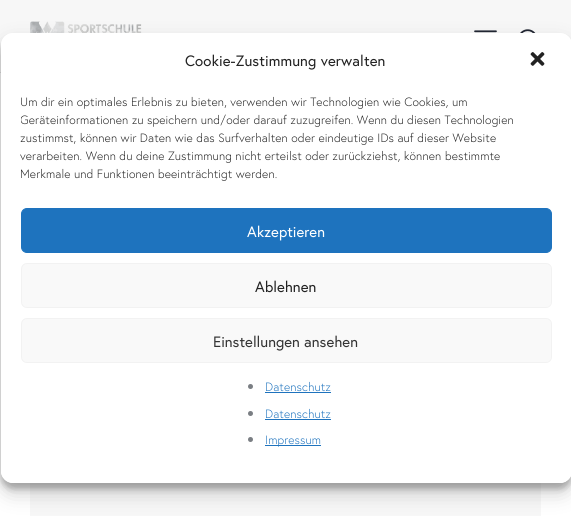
import math
import cairo


def write_spaced(ctx, x, y, s, letter, word):
	ctx.move_to(x, y)
	for ch in s:
		ctx.show_text(ch)
		ctx.rel_move_to(letter + word * (ch == ' '), 0)

def round_path(ctx, x, y, w, h, r):
	ctx.new_sub_path()
	for i, (u, v) in enumerate([(x + w - r, y + h - r), (x + r, y + h - r), (x + r, y + r), (x + w - r, y + r)]):
		ctx.arc(u, v, r, i * math.pi / 2, (i + 1) * math.pi / 2)
	ctx.close_path()

def blur_box(ctx, x, y, w, h, r, blur, alpha):
	ctx.push_group_with_content(cairo.CONTENT_ALPHA)
	ctx.set_operator(cairo.OPERATOR_SOURCE)
	for i in range(15, -16, -2):
		e = blur * i / 6
		if min(w, h) + 2 * e > 0:
			ctx.set_source_rgba(0, 0, 0, alpha * math.erfc((i - 1) / 8.5) / 2)
			round_path(ctx, x - e, y - e, w + 2 * e, h + 2 * e, max(0, min(r + e + blur * .6, min(w, h) / 2 + e)))
			ctx.fill()
	ctx.mask(ctx.pop_group())

def paste(ctx, path, x, y, w, h):
	ctx.save()
	ctx.set_source_surface(cairo.ImageSurface.create_from_png(path), x, y)
	ctx.rectangle(x, y, w, h)
	ctx.fill()
	ctx.restore()

def draw(ctx):
	ctx.set_source_rgb(1, 1, 1)
	ctx.paint()
	ctx.set_source_rgb(0.965, 0.965, 0.965)
	ctx.rectangle(0, 0, 571, 72)
	ctx.fill()
	ctx.set_source_rgb(0.886, 0.886, 0.886)
	ctx.rectangle(0, 72, 1, 1)
	ctx.fill()
	paste(ctx, 'media/1.png', 30, 21, 112, 12)
	paste(ctx, 'media/2.png', 474, 30, 23, 3)
	paste(ctx, 'media/3.png', 520, 29, 16, 4)
	ctx.set_source_rgb(0.965, 0.965, 0.965)
	ctx.rectangle(30, 483, 511, 33)
	ctx.fill()
	ctx.save()
	ctx.set_fill_rule(cairo.FILL_RULE_EVEN_ODD)
	ctx.new_path()
	ctx.move_to(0, 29)
	ctx.line_to(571, 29)
	ctx.line_to(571, 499)
	ctx.line_to(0, 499)
	ctx.close_path()
	ctx.move_to(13, 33)
	ctx.line_to(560, 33)
	ctx.curve_to(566.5, 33, 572, 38.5, 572, 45)
	ctx.line_to(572, 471)
	ctx.curve_to(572, 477.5, 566.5, 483, 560, 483)
	ctx.line_to(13, 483)
	ctx.curve_to(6.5, 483, 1, 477.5, 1, 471)
	ctx.line_to(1, 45)
	ctx.curve_to(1, 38.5, 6.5, 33, 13, 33)
	ctx.close_path()
	ctx.clip()
	ctx.set_source_rgb(0, 0, 0)
	blur_box(ctx, 1, 39, 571, 450, 12, 3, 0.23)
	ctx.restore()
	ctx.save()
	ctx.set_fill_rule(cairo.FILL_RULE_EVEN_ODD)
	ctx.new_path()
	ctx.move_to(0, 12)
	ctx.line_to(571, 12)
	ctx.line_to(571, 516)
	ctx.line_to(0, 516)
	ctx.close_path()
	ctx.move_to(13, 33)
	ctx.line_to(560, 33)
	ctx.curve_to(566.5, 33, 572, 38.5, 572, 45)
	ctx.line_to(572, 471)
	ctx.curve_to(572, 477.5, 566.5, 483, 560, 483)
	ctx.line_to(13, 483)
	ctx.curve_to(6.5, 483, 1, 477.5, 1, 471)
	ctx.line_to(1, 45)
	ctx.curve_to(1, 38.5, 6.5, 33, 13, 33)
	ctx.close_path()
	ctx.clip()
	ctx.set_source_rgb(0, 0, 0)
	blur_box(ctx, 1, 43, 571, 450, 12, 10, 0.19)
	ctx.restore()
	ctx.set_source_rgb(1, 1, 1)
	round_path(ctx, 1, 33, 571, 450, 12)
	ctx.fill()
	ctx.select_font_face('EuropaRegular')
	ctx.set_font_size(15)
	ctx.set_source_rgb(0.133, 0.133, 0.133)
	write_spaced(ctx, 185, 66, 'Cookie-Zustimmung verwalten', 0.1, 0)
	paste(ctx, 'media/4.png', 530, 52, 15, 14)
	ctx.select_font_face('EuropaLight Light')
	ctx.set_font_size(12)
	write_spaced(ctx, 20, 106, 'Um dir ein optimales Erlebnis zu bieten, verwenden wir Technologien wie Cookies, um', 0.1, 0)
	ctx.save()
	ctx.rectangle(21, 93, 531, 95)
	ctx.clip()
	write_spaced(ctx, 20, 124, 'Geräteinformationen zu speichern und/oder darauf zuzugreifen. Wenn du diesen Technologien', 0.1, 0)
	ctx.restore()
	for x, y, s in [
		(20, 142, 'zustimmst, können wir Daten wie das Surfverhalten oder eindeutige IDs auf dieser Website'),
		(20, 160, 'verarbeiten. Wenn du deine Zustimmung nicht erteilst oder zurückziehst, können bestimmte'),
		(20, 178, 'Merkmale und Funktionen beeinträchtigt werden.'),
	]:
		write_spaced(ctx, x, y, s, 0.1, 0)
	ctx.set_source_rgb(0.118, 0.451, 0.745)
	round_path(ctx, 21.5, 208.5, 530, 44, 5.5)
	ctx.fill_preserve()
	ctx.set_line_width(1)
	ctx.stroke()
	ctx.select_font_face('EuropaRegular')
	ctx.set_font_size(15)
	ctx.set_source_rgb(1, 1, 1)
	ctx.move_to(247, 237)
	ctx.show_text('Akzeptieren')
	ctx.set_source_rgb(0.976, 0.976, 0.976)
	round_path(ctx, 21.5, 263.5, 530, 44, 5.5)
	ctx.fill_preserve()
	ctx.set_source_rgb(0.949, 0.949, 0.949)
	ctx.stroke()
	ctx.set_source_rgb(0.133, 0.133, 0.133)
	ctx.move_to(255, 292)
	ctx.show_text('Ablehnen')
	ctx.set_source_rgb(0.976, 0.976, 0.976)
	round_path(ctx, 21.5, 318.5, 530, 44, 5.5)
	ctx.fill_preserve()
	ctx.set_source_rgb(0.949, 0.949, 0.949)
	ctx.stroke()
	ctx.set_source_rgb(0.2, 0.2, 0.2)
	ctx.move_to(213, 347)
	ctx.show_text('Einstellungen ansehen')
	ctx.set_source_rgb(0.478, 0.494, 0.514)
	ctx.new_path()
	ctx.arc(250.5, 386.5, 2.5, 0, 2 * math.pi)
	ctx.fill()
	ctx.select_font_face('EuropaLight Light')
	ctx.set_font_size(12)
	ctx.set_source_rgb(0.118, 0.451, 0.745)
	write_spaced(ctx, 265, 391, 'Datenschutz', 0.1, 0)
	ctx.rectangle(265, 392, 66, 1)
	ctx.fill()
	ctx.set_source_rgb(0.478, 0.494, 0.514)
	ctx.arc(250.5, 413.5, 2.5, 0, 2 * math.pi)
	ctx.fill()
	ctx.set_source_rgb(0.118, 0.451, 0.745)
	write_spaced(ctx, 265, 418, 'Datenschutz', 0.1, 0)
	ctx.rectangle(265, 419, 66, 1)
	ctx.fill()
	ctx.set_source_rgb(0.478, 0.494, 0.514)
	ctx.arc(250.5, 439.5, 2.5, 0, 2 * math.pi)
	ctx.fill()
	ctx.set_source_rgb(0.118, 0.451, 0.745)
	ctx.rectangle(265, 445, 56, 1)
	ctx.fill()
	write_spaced(ctx, 265, 444, 'Impressum', 0.1, 0)


surface = cairo.ImageSurface(cairo.FORMAT_RGB24, 571, 516)
ctx = cairo.Context(surface)
options = cairo.FontOptions()
options.set_hint_metrics(cairo.HINT_METRICS_OFF)
options.set_hint_style(cairo.HINT_STYLE_NONE)
ctx.set_font_options(options)
ctx.set_miter_limit(4)
draw(ctx)
surface.write_to_png('image.png')
